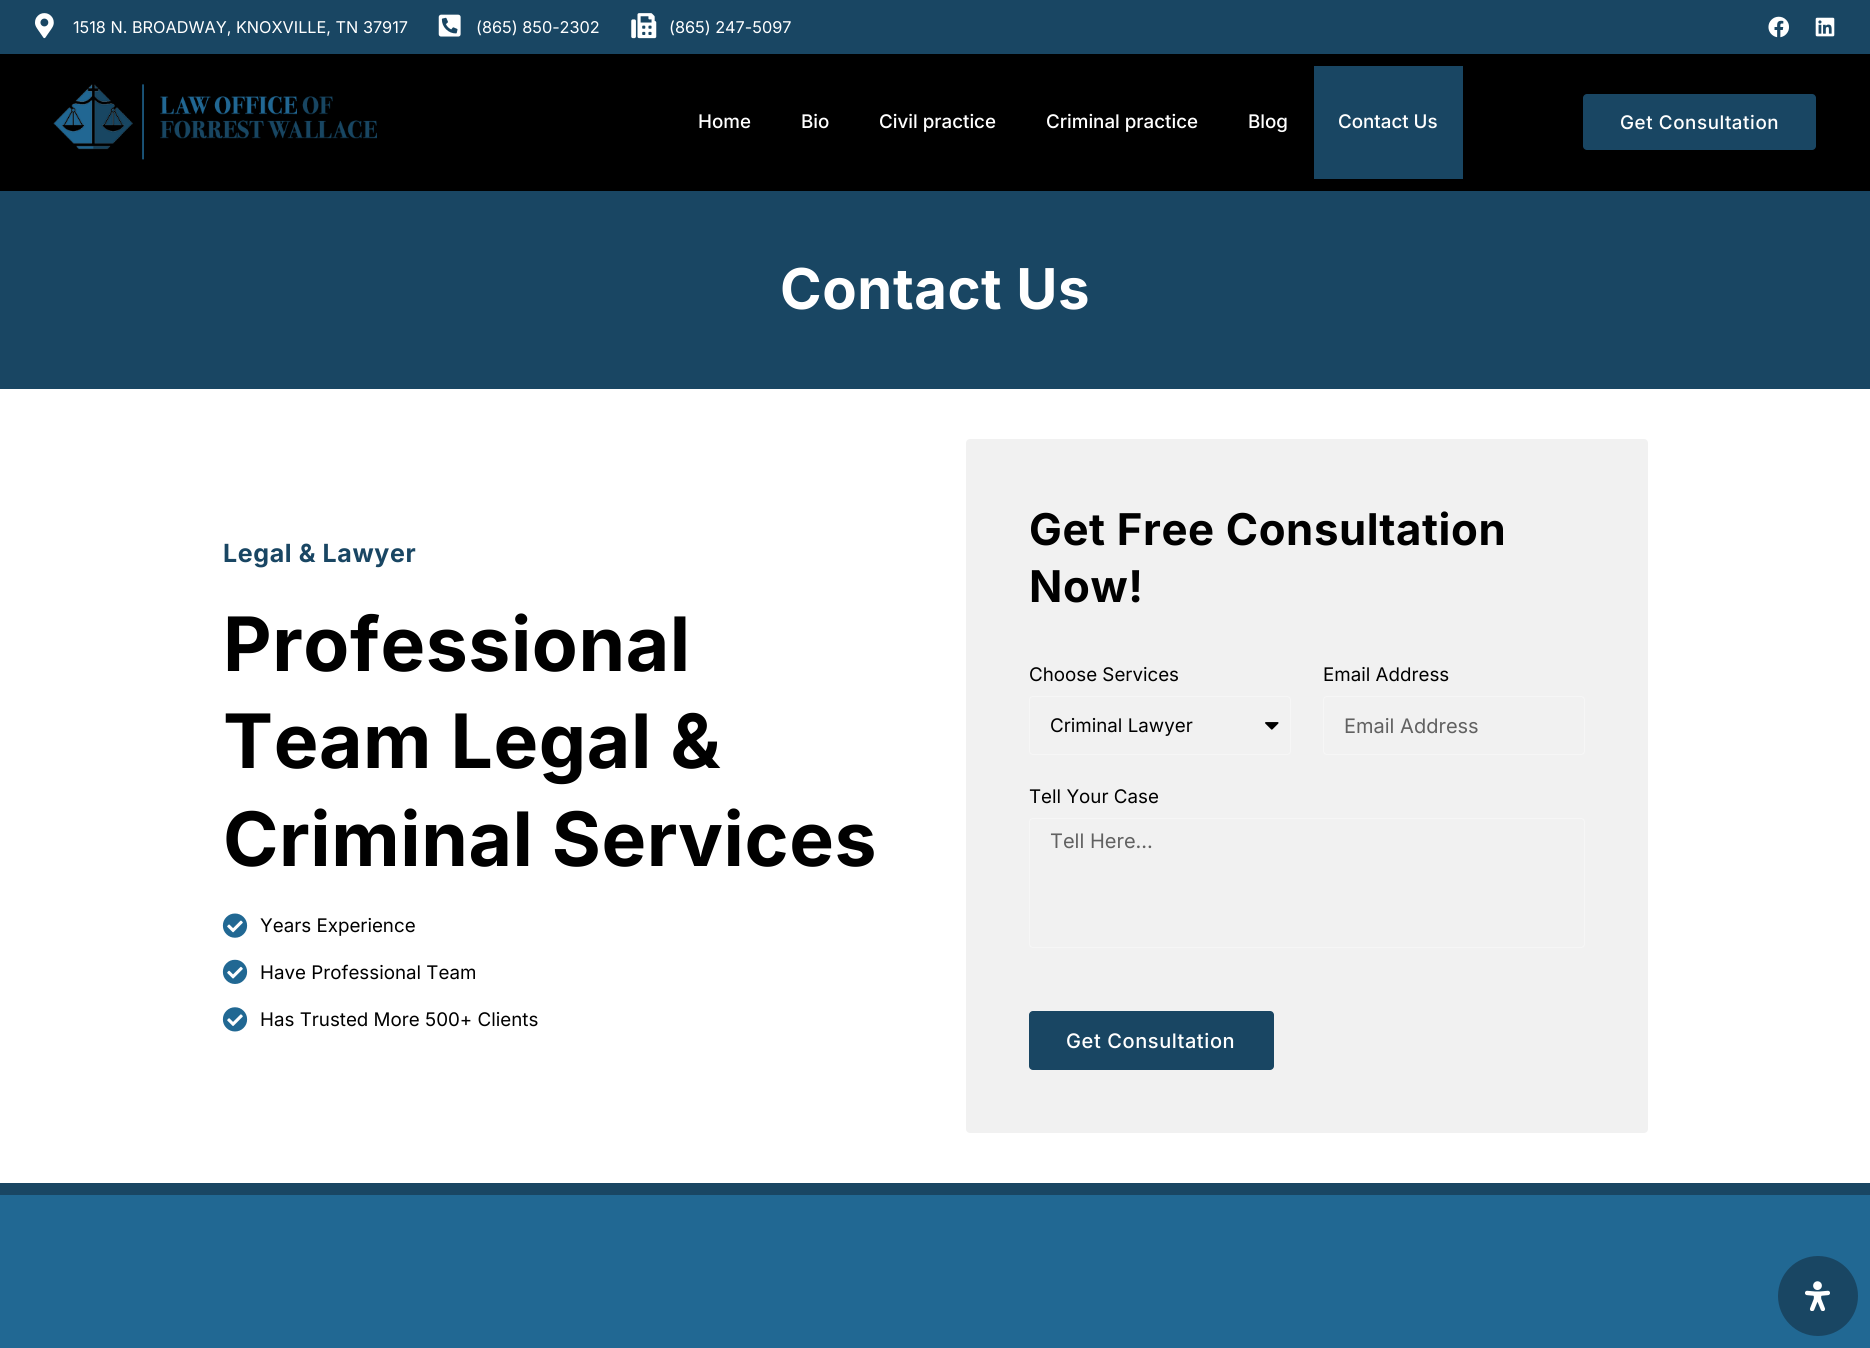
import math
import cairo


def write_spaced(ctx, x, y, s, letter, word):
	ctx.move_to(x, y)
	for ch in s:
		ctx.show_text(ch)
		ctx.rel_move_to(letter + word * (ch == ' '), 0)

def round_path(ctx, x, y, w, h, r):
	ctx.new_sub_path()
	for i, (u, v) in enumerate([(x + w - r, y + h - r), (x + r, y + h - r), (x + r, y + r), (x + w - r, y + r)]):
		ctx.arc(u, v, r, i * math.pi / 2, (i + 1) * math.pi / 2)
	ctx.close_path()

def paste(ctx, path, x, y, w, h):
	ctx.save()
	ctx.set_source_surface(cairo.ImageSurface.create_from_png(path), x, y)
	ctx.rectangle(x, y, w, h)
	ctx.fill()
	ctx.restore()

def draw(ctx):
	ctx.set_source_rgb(1, 1, 1)
	ctx.paint()
	ctx.set_source_rgb(0.098, 0.275, 0.388)
	ctx.rectangle(0, 0, 1870, 54)
	ctx.fill()
	paste(ctx, 'media/1.png', 35, 13, 19, 26)
	ctx.select_font_face('Inter')
	ctx.set_font_size(16.25)
	ctx.set_source_rgb(1, 1, 1)
	ctx.move_to(73, 33)
	ctx.show_text('1518 N. BROADWAY, KNOXVILLE, TN 37917')
	paste(ctx, 'media/2.png', 438, 14, 23, 23)
	ctx.move_to(476, 33)
	ctx.show_text('(865) 850-2302')
	paste(ctx, 'media/3.png', 631, 13, 26, 26)
	ctx.move_to(669, 33)
	ctx.show_text('(865) 247-5097')
	paste(ctx, 'media/4.png', 1768, 16, 21, 22)
	paste(ctx, 'media/5.png', 1815, 17, 20, 20)
	ctx.set_source_rgb(0, 0, 0)
	ctx.rectangle(0, 54, 1870, 137)
	ctx.fill()
	paste(ctx, 'media/6.png', 53, 84, 324, 76)
	ctx.select_font_face('Inter Medium')
	ctx.set_font_size(18.75)
	ctx.set_source_rgb(1, 1, 1)
	for x, y, s in [
		(698, 128, 'Home'),
		(801, 128, 'Bio'),
		(879, 128, 'Civil practice'),
		(1046, 128, 'Criminal practice'),
		(1248, 128, 'Blog'),
	]:
		ctx.move_to(x, y)
		ctx.show_text(s)
	ctx.set_source_rgb(0.098, 0.275, 0.388)
	ctx.rectangle(1314, 66, 149, 113)
	ctx.fill()
	ctx.set_source_rgb(1, 1, 1)
	ctx.move_to(1338, 128)
	ctx.show_text('Contact Us')
	ctx.set_source_rgb(0.098, 0.275, 0.388)
	round_path(ctx, 1583, 94, 233, 56, 4)
	ctx.fill()
	ctx.set_source_rgb(1, 1, 1)
	write_spaced(ctx, 1620, 129, 'Get Consultation', 0.6, 0)
	ctx.set_source_rgb(0.098, 0.275, 0.388)
	ctx.rectangle(0, 191, 1870, 198)
	ctx.fill()
	ctx.select_font_face('Inter', cairo.FONT_SLANT_NORMAL, cairo.FONT_WEIGHT_BOLD)
	ctx.set_font_size(56.25)
	ctx.set_source_rgb(1, 1, 1)
	write_spaced(ctx, 780, 309, 'Contact Us', 0.6, 0)
	ctx.set_font_size(25)
	ctx.set_source_rgb(0.098, 0.275, 0.388)
	write_spaced(ctx, 223, 562, 'Legal & Lawyer', 0.6, 0)
	ctx.set_font_size(75)
	ctx.set_source_rgb(0, 0, 0)
	for x, y, s in [
		(223, 671, 'Professional'),
		(223, 768, 'Team Legal &'),
		(223, 866, 'Criminal Services'),
	]:
		write_spaced(ctx, x, y, s, 0.6, 0)
	paste(ctx, 'media/7.png', 222, 913, 26, 25)
	ctx.select_font_face('Inter')
	ctx.set_font_size(18.75)
	ctx.move_to(260, 932)
	ctx.show_text('Years Experience')
	paste(ctx, 'media/8.png', 222, 959, 26, 25)
	ctx.move_to(260, 979)
	ctx.show_text('Have Professional Team')
	paste(ctx, 'media/9.png', 222, 1007, 26, 25)
	ctx.move_to(260, 1026)
	ctx.show_text('Has Trusted More 500+ Clients')
	ctx.set_source_rgb(0.945, 0.945, 0.945)
	round_path(ctx, 966, 439, 682, 694, 4)
	ctx.fill()
	ctx.select_font_face('Inter', cairo.FONT_SLANT_NORMAL, cairo.FONT_WEIGHT_BOLD)
	ctx.set_font_size(43.75)
	ctx.set_source_rgb(0, 0, 0)
	write_spaced(ctx, 1029, 545, 'Get Free Consultation', 0.6, 0)
	write_spaced(ctx, 1029, 602, 'Now!', 0.6, 0)
	ctx.select_font_face('Inter')
	ctx.set_font_size(18.75)
	ctx.move_to(1029, 681)
	ctx.show_text('Choose Services')
	round_path(ctx, 1029.5, 696.5, 261, 58, 3.5)
	ctx.set_source_rgb(0.961, 0.961, 0.961)
	ctx.set_line_width(1)
	ctx.stroke()
	ctx.set_source_rgb(0, 0, 0)
	ctx.move_to(1050, 732)
	ctx.show_text('Criminal Lawyer')
	paste(ctx, 'media/10.png', 1265, 722, 14, 8)
	ctx.move_to(1323, 681)
	ctx.show_text('Email Address')
	round_path(ctx, 1323.5, 696.5, 261, 58, 3.5)
	ctx.set_source_rgb(0.961, 0.961, 0.961)
	ctx.stroke()
	ctx.set_font_size(20)
	ctx.set_source_rgb(0.38, 0.38, 0.38)
	ctx.move_to(1344, 733)
	ctx.show_text('Email Address')
	ctx.set_font_size(18.75)
	ctx.set_source_rgb(0, 0, 0)
	ctx.move_to(1029, 803)
	ctx.show_text('Tell Your Case')
	round_path(ctx, 1029.5, 818.5, 555, 129, 3.5)
	ctx.set_source_rgb(0.961, 0.961, 0.961)
	ctx.stroke()
	ctx.set_font_size(20)
	ctx.set_source_rgb(0.38, 0.38, 0.38)
	ctx.move_to(1050, 848)
	ctx.show_text('Tell Here...')
	ctx.set_source_rgb(0.098, 0.275, 0.388)
	round_path(ctx, 1029, 1011, 245, 59, 4)
	ctx.fill()
	ctx.select_font_face('Inter Medium')
	ctx.set_source_rgb(1, 1, 1)
	write_spaced(ctx, 1066, 1048, 'Get Consultation', 0.6, 0)
	ctx.set_source_rgb(0.129, 0.408, 0.576)
	ctx.rectangle(0, 1195, 1870, 153)
	ctx.fill()
	ctx.set_source_rgb(0.098, 0.275, 0.388)
	ctx.rectangle(0, 1183, 1870, 12)
	ctx.fill()
	ctx.arc(1818, 1296, 40, 0, 2 * math.pi)
	ctx.fill()
	paste(ctx, 'media/11.png', 1805, 1281, 25, 30)


surface = cairo.ImageSurface(cairo.FORMAT_RGB24, 1870, 1348)
ctx = cairo.Context(surface)
options = cairo.FontOptions()
options.set_hint_metrics(cairo.HINT_METRICS_OFF)
options.set_hint_style(cairo.HINT_STYLE_NONE)
ctx.set_font_options(options)
ctx.set_miter_limit(4)
draw(ctx)
surface.write_to_png('image.png')
